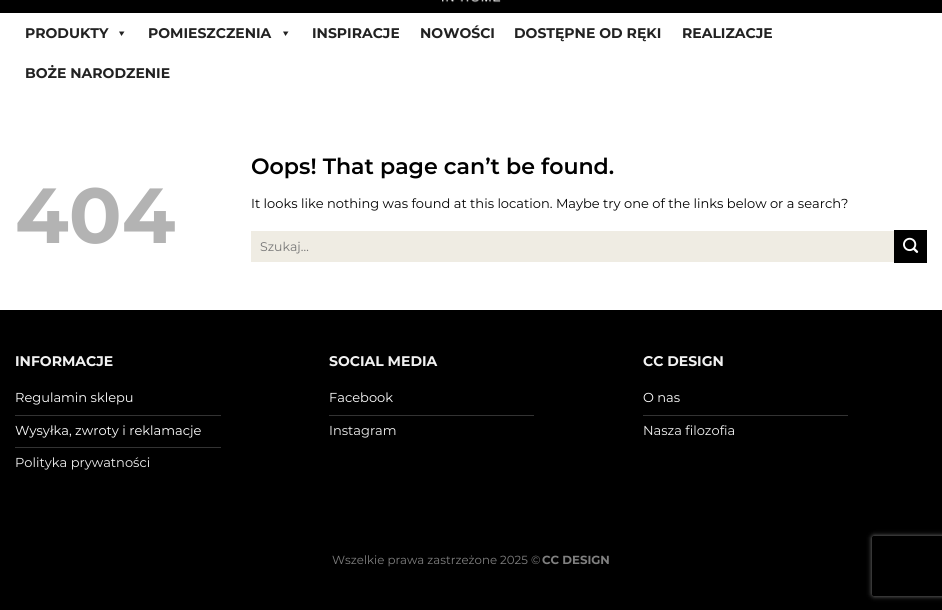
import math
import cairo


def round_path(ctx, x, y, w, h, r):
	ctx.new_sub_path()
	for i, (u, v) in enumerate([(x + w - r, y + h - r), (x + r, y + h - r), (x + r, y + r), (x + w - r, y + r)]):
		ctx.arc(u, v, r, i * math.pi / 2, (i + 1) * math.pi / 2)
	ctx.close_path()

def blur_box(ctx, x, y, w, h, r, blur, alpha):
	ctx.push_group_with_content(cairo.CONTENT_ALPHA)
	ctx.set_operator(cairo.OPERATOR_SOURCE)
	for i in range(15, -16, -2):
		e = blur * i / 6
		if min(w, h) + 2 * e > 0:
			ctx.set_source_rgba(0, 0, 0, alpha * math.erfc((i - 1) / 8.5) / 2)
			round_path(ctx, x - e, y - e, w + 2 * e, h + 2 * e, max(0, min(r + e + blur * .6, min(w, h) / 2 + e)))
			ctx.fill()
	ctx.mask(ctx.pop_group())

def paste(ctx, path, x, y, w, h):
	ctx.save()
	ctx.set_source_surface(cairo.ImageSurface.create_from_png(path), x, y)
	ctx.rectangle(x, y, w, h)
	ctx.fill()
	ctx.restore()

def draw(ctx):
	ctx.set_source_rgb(0, 0, 0)
	ctx.paint()
	ctx.set_source_rgb(1, 1, 1)
	ctx.rectangle(0, 13, 942, 297)
	ctx.fill()
	paste(ctx, 'media/1.png', 442, 0, 59, 3)
	ctx.select_font_face('Montserrat', cairo.FONT_SLANT_NORMAL, cairo.FONT_WEIGHT_BOLD)
	ctx.set_font_size(14)
	ctx.set_source_rgb(0.133, 0.133, 0.133)
	ctx.move_to(25, 38)
	ctx.show_text('PRODUKTY')
	ctx.new_path()
	ctx.move_to(124.5, 31.5)
	ctx.line_to(121.5, 36)
	ctx.line_to(119, 31.5)
	ctx.close_path()
	ctx.fill()
	ctx.move_to(148, 38)
	ctx.show_text('POMIESZCZENIA')
	ctx.new_path()
	ctx.move_to(288.5, 31.5)
	ctx.line_to(285.5, 36)
	ctx.line_to(283, 31.5)
	ctx.close_path()
	ctx.fill()
	for x, y, s in [
		(312, 38, 'INSPIRACJE'),
		(420, 38, 'NOWOŚCI'),
		(514, 38, 'DOSTĘPNE OD RĘKI'),
		(682, 38, 'REALIZACJE'),
		(25, 78, 'BOŻE NARODZENIE'),
	]:
		ctx.move_to(x, y)
		ctx.show_text(s)
	ctx.set_font_size(78)
	ctx.set_source_rgb(0.702, 0.702, 0.702)
	ctx.move_to(15, 243)
	ctx.show_text('404')
	ctx.select_font_face('Montserrat SemiBold')
	ctx.set_font_size(22.1)
	ctx.set_source_rgb(0, 0, 0)
	ctx.move_to(251, 174)
	ctx.show_text('Oops! That page can’t be found.')
	ctx.select_font_face('Montserrat')
	ctx.set_font_size(13)
	ctx.move_to(251, 208)
	ctx.show_text('It looks like nothing was found at this location. Maybe try one of the links below or a search?')
	ctx.set_source_rgb(0.937, 0.922, 0.89)
	ctx.rectangle(251, 231, 643, 31)
	ctx.fill()
	ctx.set_font_size(12.5)
	ctx.set_source_rgb(0.459, 0.459, 0.459)
	ctx.move_to(260, 251)
	ctx.show_text('Szukaj…')
	ctx.set_source_rgb(0, 0, 0)
	ctx.rectangle(894, 230, 33, 33)
	ctx.fill()
	paste(ctx, 'media/2.png', 903, 237, 16, 16)
	ctx.select_font_face('Montserrat', cairo.FONT_SLANT_NORMAL, cairo.FONT_WEIGHT_BOLD)
	ctx.set_font_size(14)
	ctx.set_source_rgb(0.945, 0.945, 0.945)
	ctx.move_to(15, 366)
	ctx.show_text('INFORMACJE')
	ctx.set_source_rgb(0.2, 0.2, 0.2)
	ctx.rectangle(15, 415, 206, 1)
	ctx.fill()
	ctx.select_font_face('Montserrat')
	ctx.set_font_size(13)
	ctx.set_source_rgb(1, 1, 1)
	ctx.move_to(15, 402)
	ctx.show_text('Regulamin sklepu')
	ctx.set_source_rgb(0.2, 0.2, 0.2)
	ctx.rectangle(15, 447, 206, 1)
	ctx.fill()
	ctx.set_source_rgb(1, 1, 1)
	ctx.move_to(15, 435)
	ctx.show_text('Wysyłka, zwroty i reklamacje')
	ctx.set_source_rgb(0.945, 0.945, 0.945)
	ctx.move_to(15, 467)
	ctx.show_text('Polityka prywatności')
	ctx.select_font_face('Montserrat', cairo.FONT_SLANT_NORMAL, cairo.FONT_WEIGHT_BOLD)
	ctx.set_font_size(14)
	ctx.move_to(329, 366)
	ctx.show_text('SOCIAL MEDIA')
	ctx.set_source_rgb(0.2, 0.2, 0.2)
	ctx.rectangle(329, 415, 205, 1)
	ctx.fill()
	ctx.select_font_face('Montserrat')
	ctx.set_font_size(13)
	ctx.set_source_rgb(1, 1, 1)
	ctx.move_to(329, 402)
	ctx.show_text('Facebook')
	ctx.set_source_rgb(0.945, 0.945, 0.945)
	ctx.move_to(329, 435)
	ctx.show_text('Instagram')
	ctx.select_font_face('Montserrat', cairo.FONT_SLANT_NORMAL, cairo.FONT_WEIGHT_BOLD)
	ctx.set_font_size(14)
	ctx.move_to(643, 366)
	ctx.show_text('CC DESIGN')
	ctx.set_source_rgb(0.2, 0.2, 0.2)
	ctx.rectangle(643, 415, 205, 1)
	ctx.fill()
	ctx.select_font_face('Montserrat')
	ctx.set_font_size(13)
	ctx.set_source_rgb(1, 1, 1)
	ctx.move_to(643, 402)
	ctx.show_text('O nas')
	ctx.set_source_rgb(0.945, 0.945, 0.945)
	ctx.move_to(643, 435)
	ctx.show_text('Nasza filozofia')
	ctx.set_font_size(11.75)
	ctx.set_source_rgb(0.502, 0.502, 0.502)
	ctx.move_to(332, 564)
	ctx.show_text('Wszelkie prawa zastrzeżone 2025 ©')
	ctx.select_font_face('Montserrat', cairo.FONT_SLANT_NORMAL, cairo.FONT_WEIGHT_BOLD)
	ctx.move_to(542, 564)
	ctx.show_text('CC DESIGN')
	ctx.save()
	ctx.set_fill_rule(cairo.FILL_RULE_EVEN_ODD)
	ctx.new_path()
	ctx.move_to(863, 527)
	ctx.line_to(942, 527)
	ctx.line_to(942, 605)
	ctx.line_to(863, 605)
	ctx.close_path()
	ctx.move_to(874, 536)
	ctx.line_to(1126, 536)
	ctx.curve_to(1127, 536, 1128, 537, 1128, 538)
	ctx.line_to(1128, 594)
	ctx.curve_to(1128, 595, 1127, 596, 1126, 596)
	ctx.line_to(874, 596)
	ctx.curve_to(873, 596, 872, 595, 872, 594)
	ctx.line_to(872, 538)
	ctx.curve_to(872, 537, 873, 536, 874, 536)
	ctx.close_path()
	ctx.clip()
	ctx.set_source_rgb(0.502, 0.502, 0.502)
	blur_box(ctx, 872, 536, 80, 60, 2, 2.5, 1)
	ctx.restore()


surface = cairo.ImageSurface(cairo.FORMAT_RGB24, 942, 610)
ctx = cairo.Context(surface)
options = cairo.FontOptions()
options.set_hint_metrics(cairo.HINT_METRICS_OFF)
options.set_hint_style(cairo.HINT_STYLE_NONE)
ctx.set_font_options(options)
ctx.set_miter_limit(4)
draw(ctx)
surface.write_to_png('image.png')
